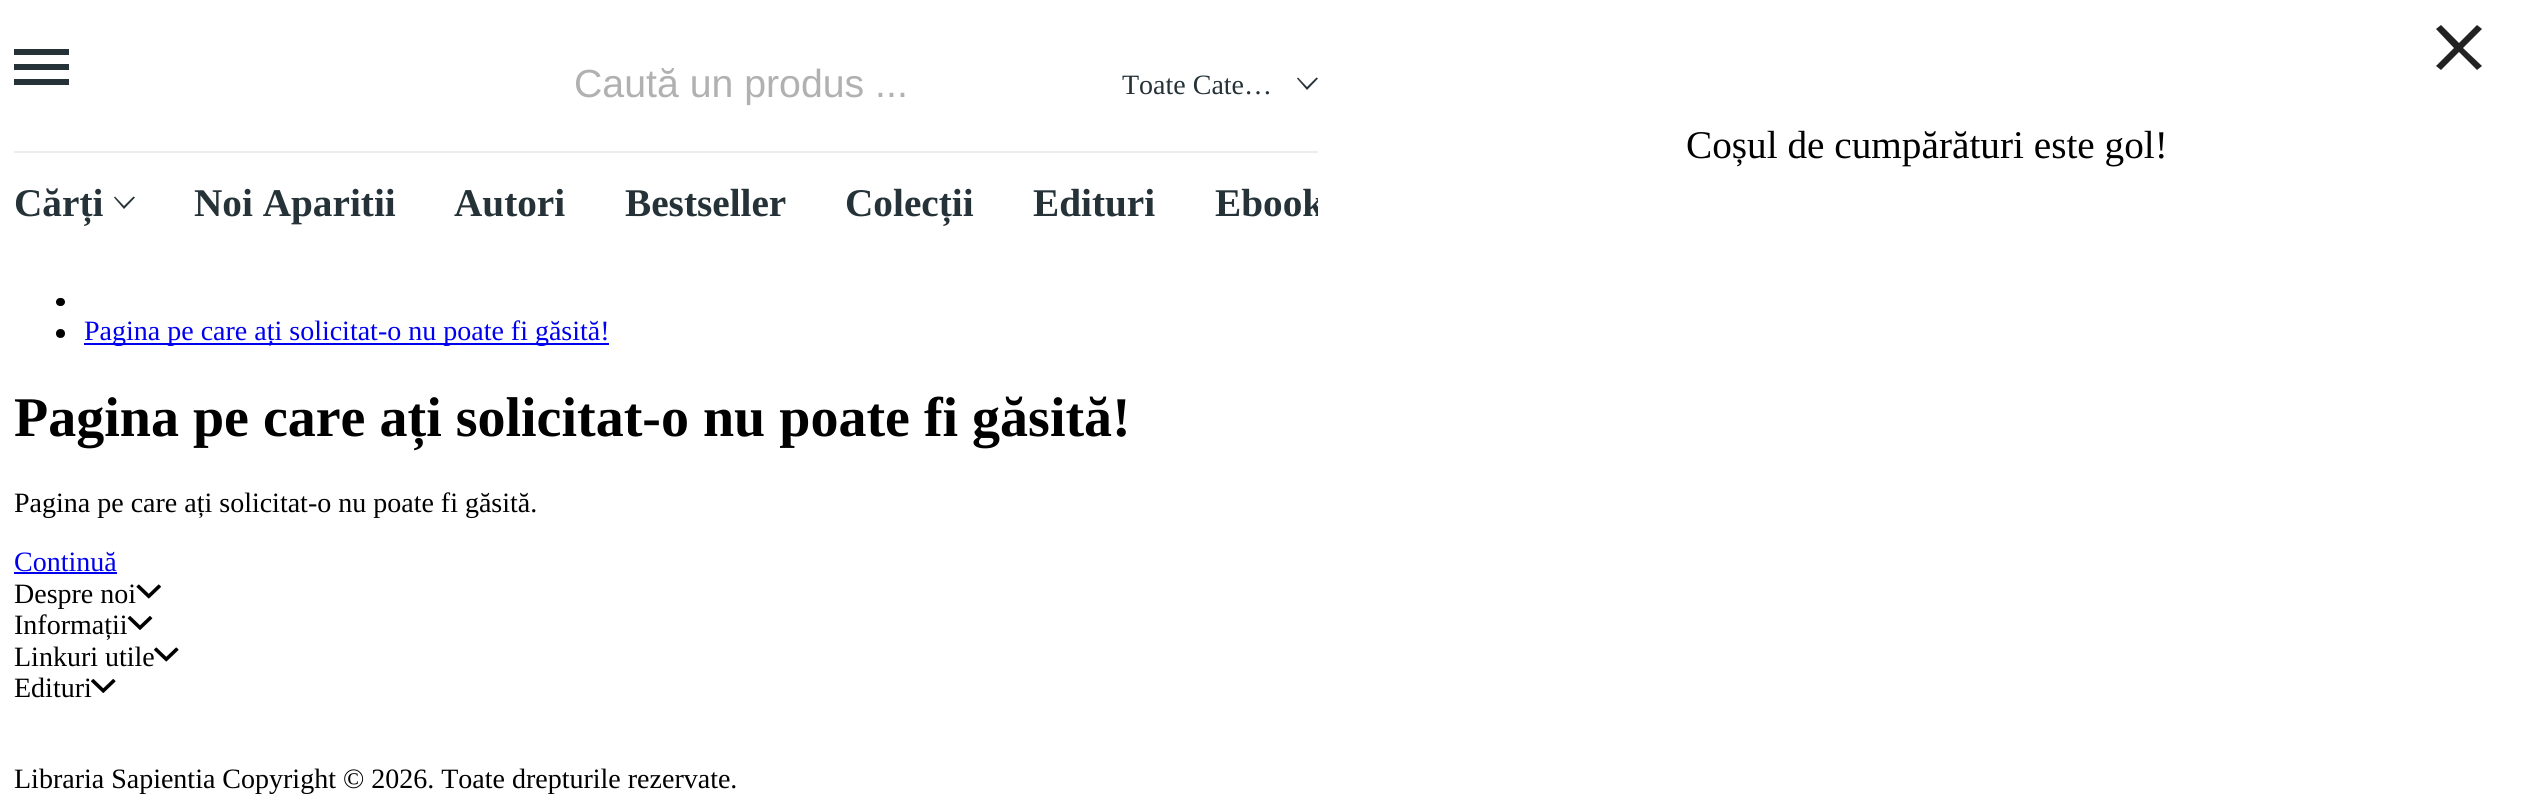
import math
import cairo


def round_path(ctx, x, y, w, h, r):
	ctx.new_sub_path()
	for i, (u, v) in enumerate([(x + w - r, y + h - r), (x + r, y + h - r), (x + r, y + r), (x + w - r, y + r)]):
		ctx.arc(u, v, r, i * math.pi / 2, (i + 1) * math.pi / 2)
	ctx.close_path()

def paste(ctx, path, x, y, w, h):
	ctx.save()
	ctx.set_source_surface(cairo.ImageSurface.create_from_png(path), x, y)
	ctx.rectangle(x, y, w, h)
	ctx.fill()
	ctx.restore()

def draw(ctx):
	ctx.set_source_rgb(1, 1, 1)
	ctx.paint()
	ctx.select_font_face('Liberation Sans')
	ctx.set_font_size(39.25)
	ctx.set_source_rgb(0.694, 0.694, 0.694)
	ctx.move_to(574, 97)
	ctx.show_text('Caută un produs ...')
	ctx.select_font_face('Liberation Serif')
	ctx.set_font_size(28)
	ctx.set_source_rgb(0.145, 0.196, 0.216)
	ctx.move_to(1122, 94)
	ctx.show_text('Toate Cate…')
	ctx.new_path()
	ctx.move_to(1316.5, 77.5)
	ctx.line_to(1318, 78.5)
	ctx.line_to(1307, 90)
	ctx.line_to(1297, 78.5)
	ctx.line_to(1298, 77.5)
	ctx.line_to(1307, 87)
	ctx.close_path()
	ctx.fill()
	ctx.new_path()
	ctx.move_to(14, 85)
	ctx.line_to(14, 79)
	ctx.line_to(69, 79)
	ctx.line_to(69, 85)
	ctx.close_path()
	ctx.move_to(14, 70)
	ctx.line_to(14, 64)
	ctx.line_to(69, 64)
	ctx.line_to(69, 70)
	ctx.close_path()
	ctx.move_to(14, 49)
	ctx.line_to(69, 49)
	ctx.line_to(69, 55)
	ctx.line_to(14, 55)
	ctx.close_path()
	ctx.fill()
	ctx.select_font_face('Liberation Serif', cairo.FONT_SLANT_NORMAL, cairo.FONT_WEIGHT_BOLD)
	ctx.set_font_size(39.25)
	ctx.move_to(1215, 216)
	ctx.show_text('Ebook')
	ctx.set_source_rgb(1, 1, 1)
	ctx.rectangle(1318, 198, 6, 18)
	ctx.fill()
	ctx.set_source_rgb(0.133, 0.133, 0.133)
	ctx.new_path()
	ctx.move_to(2482, 29)
	ctx.line_to(2463, 48)
	ctx.line_to(2482, 66)
	ctx.line_to(2477, 70)
	ctx.line_to(2459, 52)
	ctx.line_to(2441, 70)
	ctx.line_to(2436, 66)
	ctx.line_to(2454, 48)
	ctx.line_to(2436, 29)
	ctx.line_to(2441, 25)
	ctx.line_to(2459, 43)
	ctx.line_to(2477, 25)
	ctx.close_path()
	ctx.fill()
	ctx.select_font_face('Liberation Serif')
	ctx.set_source_rgb(0, 0, 0)
	ctx.move_to(1686, 158)
	ctx.show_text('Coșul de cumpărături este gol!')
	ctx.set_source_rgb(0.929, 0.929, 0.929)
	ctx.rectangle(14, 151, 1304, 2)
	ctx.fill()
	ctx.select_font_face('Liberation Serif', cairo.FONT_SLANT_NORMAL, cairo.FONT_WEIGHT_BOLD)
	ctx.set_source_rgb(0.145, 0.196, 0.216)
	ctx.move_to(14, 216)
	ctx.show_text('Cărți')
	ctx.new_path()
	ctx.move_to(133.5, 196.5)
	ctx.line_to(135, 197.5)
	ctx.line_to(124, 209)
	ctx.line_to(114, 197.5)
	ctx.line_to(115, 196.5)
	ctx.line_to(124, 206)
	ctx.close_path()
	ctx.fill()
	for x, y, s in [
		(194, 216, 'Noi Aparitii'),
		(454, 216, 'Autori'),
		(625, 216, 'Bestseller'),
		(845, 216, 'Colecții'),
		(1033, 216, 'Edituri'),
	]:
		ctx.move_to(x, y)
		ctx.show_text(s)
	ctx.set_source_rgb(0, 0, 0)
	round_path(ctx, 56, 298, 9, 8, 4)
	ctx.fill()
	ctx.arc(60.5, 333.5, 4.5, 0, 2 * math.pi)
	ctx.fill()
	ctx.set_source_rgb(0, 0, 0.933)
	ctx.rectangle(84, 343, 525, 2)
	ctx.fill()
	ctx.select_font_face('Liberation Serif')
	ctx.set_font_size(28)
	ctx.move_to(84, 340)
	ctx.show_text('Pagina pe care ați solicitat-o nu poate fi găsită!')
	ctx.select_font_face('Liberation Serif', cairo.FONT_SLANT_NORMAL, cairo.FONT_WEIGHT_BOLD)
	ctx.set_font_size(56)
	ctx.set_source_rgb(0, 0, 0)
	ctx.move_to(14, 436)
	ctx.show_text('Pagina pe care ați solicitat-o nu poate fi găsită!')
	ctx.select_font_face('Liberation Serif')
	ctx.set_font_size(28)
	ctx.move_to(14, 512)
	ctx.show_text('Pagina pe care ați solicitat-o nu poate fi găsită.')
	ctx.set_source_rgb(0, 0, 0.933)
	ctx.move_to(14, 571)
	ctx.show_text('Continuă')
	ctx.rectangle(14, 572, 103, 2)
	ctx.fill()
	ctx.set_source_rgb(0, 0, 0)
	ctx.move_to(14, 603)
	ctx.show_text('Despre noi')
	paste(ctx, 'media/1.png', 136, 584, 25, 15)
	ctx.move_to(14, 634)
	ctx.show_text('Informații')
	paste(ctx, 'media/2.png', 127, 616, 26, 14)
	ctx.move_to(14, 666)
	ctx.show_text('Linkuri utile')
	paste(ctx, 'media/3.png', 154, 647, 25, 15)
	ctx.move_to(14, 697)
	ctx.show_text('Edituri')
	paste(ctx, 'media/4.png', 91, 679, 25, 14)
	ctx.move_to(14, 788)
	ctx.show_text('Libraria Sapientia Copyright © 2026. Toate drepturile rezervate.')


surface = cairo.ImageSurface(cairo.FORMAT_RGB24, 2535, 806)
ctx = cairo.Context(surface)
options = cairo.FontOptions()
options.set_hint_metrics(cairo.HINT_METRICS_OFF)
options.set_hint_style(cairo.HINT_STYLE_NONE)
ctx.set_font_options(options)
ctx.set_miter_limit(4)
draw(ctx)
surface.write_to_png('image.png')
